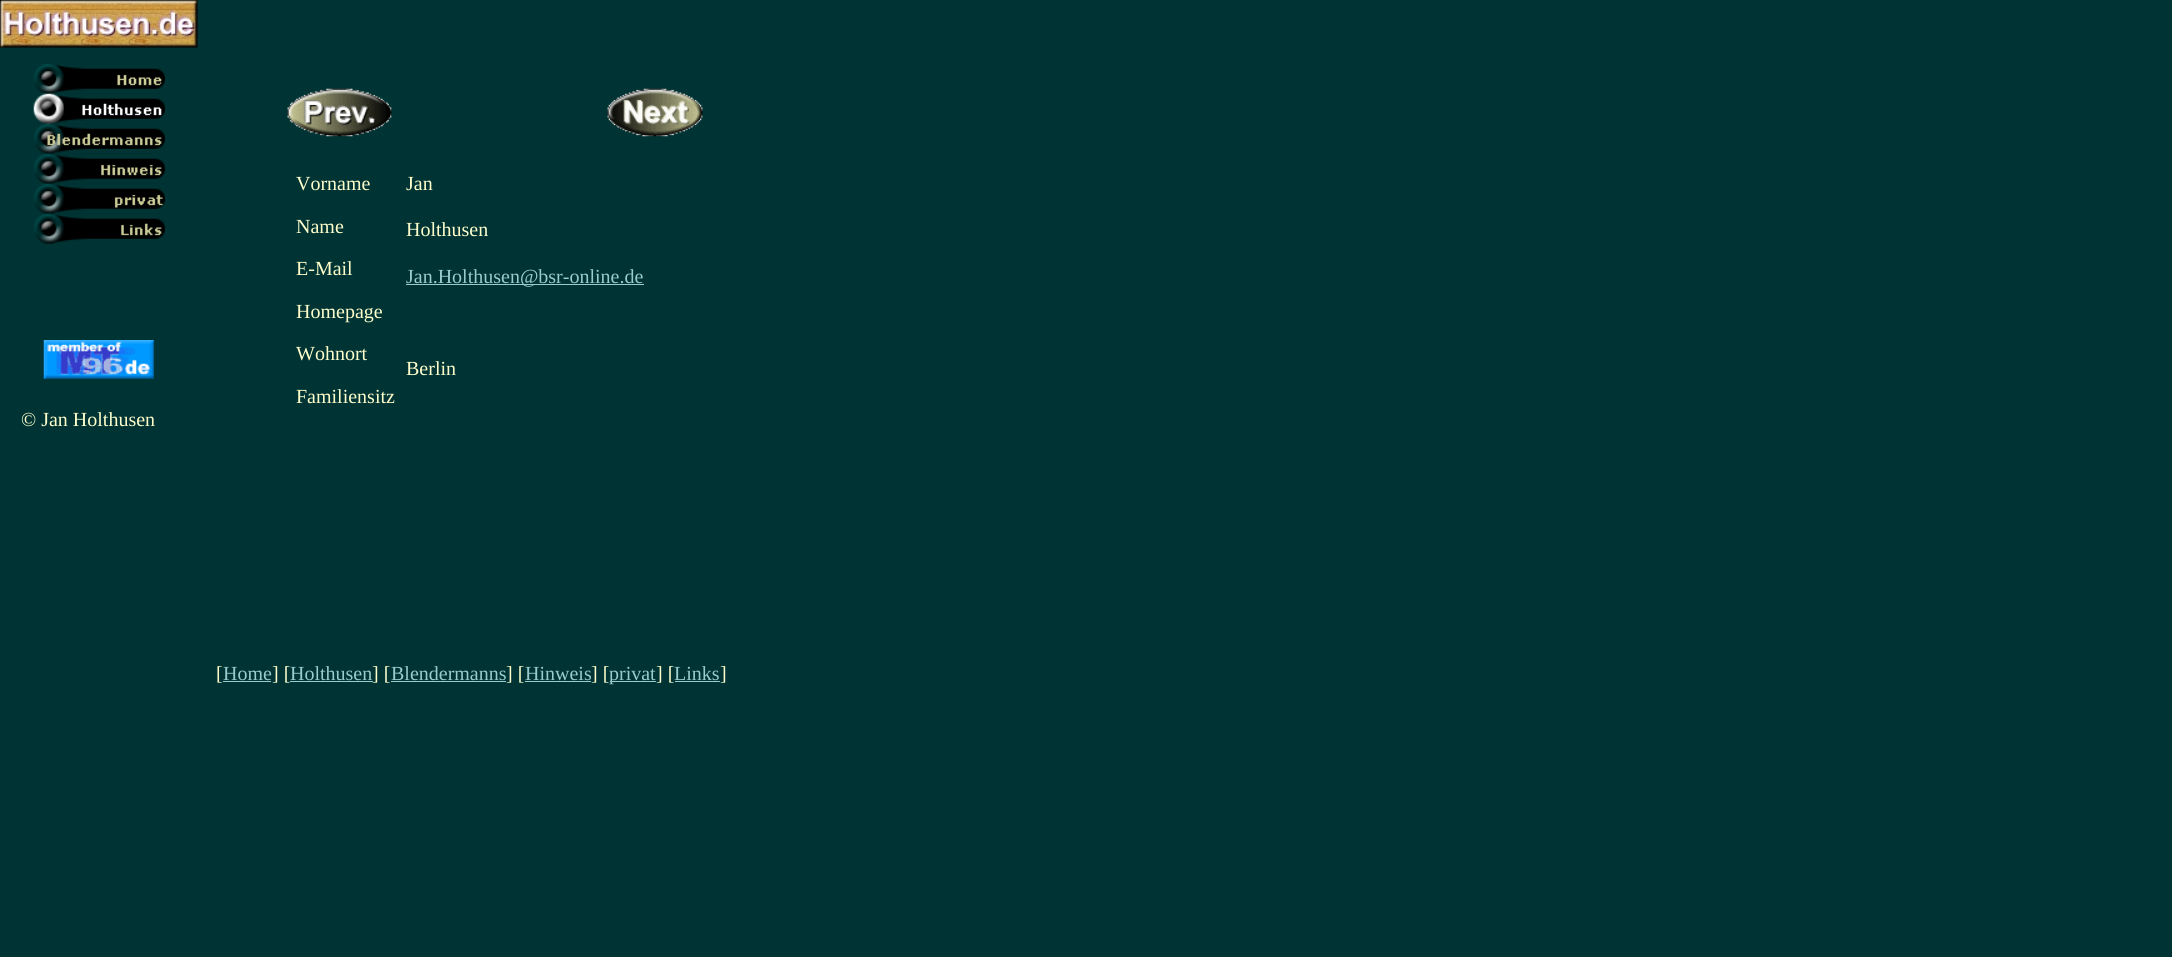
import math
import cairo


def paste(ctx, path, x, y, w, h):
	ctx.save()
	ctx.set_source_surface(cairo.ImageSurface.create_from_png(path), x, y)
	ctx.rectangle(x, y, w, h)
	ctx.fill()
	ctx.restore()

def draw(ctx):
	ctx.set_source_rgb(0, 0.2, 0.2)
	ctx.paint()
	paste(ctx, 'media/1.png', 0, 0, 198, 48)
	paste(ctx, 'media/2.png', 34, 63, 131, 31)
	paste(ctx, 'media/3.png', 33, 93, 132, 31)
	paste(ctx, 'media/4.png', 34, 123, 131, 31)
	paste(ctx, 'media/5.png', 34, 153, 131, 31)
	paste(ctx, 'media/6.png', 34, 183, 131, 31)
	paste(ctx, 'media/7.png', 34, 213, 131, 31)
	paste(ctx, 'media/8.png', 43, 340, 111, 39)
	ctx.select_font_face('Liberation Serif')
	ctx.set_font_size(20)
	ctx.set_source_rgb(1, 1, 0.8)
	ctx.move_to(21, 426)
	ctx.show_text('© Jan Holthusen')
	paste(ctx, 'media/9.png', 287, 88, 105, 49)
	for x, y, s in [
		(296, 190, 'Vorname'),
		(296, 233, 'Name'),
		(296, 275, 'E-Mail'),
		(296, 318, 'Homepage'),
		(296, 360, 'Wohnort'),
		(296, 403, 'Familiensitz'),
	]:
		ctx.move_to(x, y)
		ctx.show_text(s)
	paste(ctx, 'media/10.png', 607, 88, 96, 49)
	ctx.move_to(406, 190)
	ctx.show_text('Jan')
	ctx.move_to(406, 236)
	ctx.show_text('Holthusen')
	ctx.set_source_rgb(0.6, 0.8, 0.8)
	ctx.rectangle(406, 284, 238, 1)
	ctx.fill()
	ctx.move_to(406, 283)
	ctx.show_text('Jan.Holthusen@bsr-online.de')
	ctx.set_source_rgb(1, 1, 0.8)
	ctx.move_to(406, 375)
	ctx.show_text('Berlin')
	ctx.move_to(216, 680)
	ctx.show_text('[')
	ctx.set_source_rgb(0.6, 0.8, 0.8)
	ctx.move_to(223, 680)
	ctx.show_text('Home')
	ctx.rectangle(223, 681, 48, 1)
	ctx.fill()
	ctx.set_source_rgb(1, 1, 0.8)
	ctx.move_to(272, 680)
	ctx.show_text('] [')
	ctx.set_source_rgb(0.6, 0.8, 0.8)
	ctx.move_to(290, 680)
	ctx.show_text('Holthusen')
	ctx.rectangle(290, 681, 83, 1)
	ctx.fill()
	ctx.set_source_rgb(1, 1, 0.8)
	ctx.move_to(372, 680)
	ctx.show_text('] [')
	ctx.set_source_rgb(0.6, 0.8, 0.8)
	ctx.move_to(391, 680)
	ctx.show_text('Blendermanns')
	ctx.rectangle(391, 681, 115, 1)
	ctx.fill()
	ctx.set_source_rgb(1, 1, 0.8)
	ctx.move_to(506, 680)
	ctx.show_text('] [')
	ctx.set_source_rgb(0.6, 0.8, 0.8)
	ctx.move_to(525, 680)
	ctx.show_text('Hinweis')
	ctx.rectangle(525, 681, 66, 1)
	ctx.fill()
	ctx.set_source_rgb(1, 1, 0.8)
	ctx.move_to(591, 680)
	ctx.show_text('] [')
	ctx.set_source_rgb(0.6, 0.8, 0.8)
	ctx.rectangle(610, 681, 46, 1)
	ctx.fill()
	ctx.move_to(609, 680)
	ctx.show_text('privat')
	ctx.set_source_rgb(1, 1, 0.8)
	ctx.move_to(656, 680)
	ctx.show_text('] [')
	ctx.set_source_rgb(0.6, 0.8, 0.8)
	ctx.move_to(674, 680)
	ctx.show_text('Links')
	ctx.rectangle(675, 681, 45, 1)
	ctx.fill()
	ctx.set_source_rgb(1, 1, 0.8)
	ctx.move_to(720, 680)
	ctx.show_text(']')


surface = cairo.ImageSurface(cairo.FORMAT_RGB24, 2172, 957)
ctx = cairo.Context(surface)
options = cairo.FontOptions()
options.set_hint_metrics(cairo.HINT_METRICS_OFF)
options.set_hint_style(cairo.HINT_STYLE_NONE)
ctx.set_font_options(options)
ctx.set_miter_limit(4)
draw(ctx)
surface.write_to_png('image.png')
